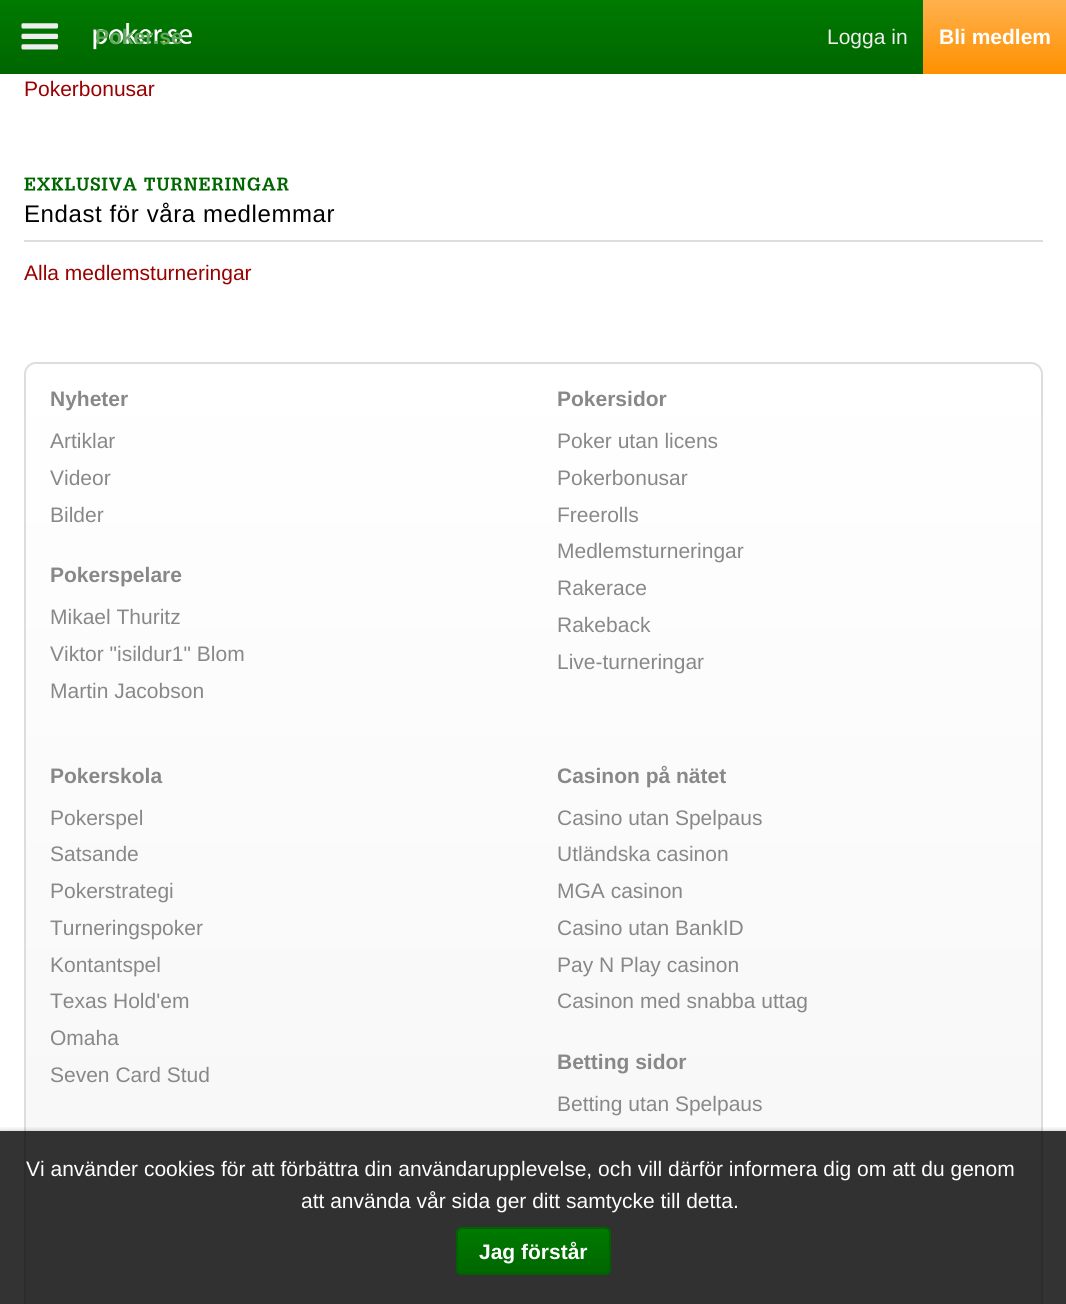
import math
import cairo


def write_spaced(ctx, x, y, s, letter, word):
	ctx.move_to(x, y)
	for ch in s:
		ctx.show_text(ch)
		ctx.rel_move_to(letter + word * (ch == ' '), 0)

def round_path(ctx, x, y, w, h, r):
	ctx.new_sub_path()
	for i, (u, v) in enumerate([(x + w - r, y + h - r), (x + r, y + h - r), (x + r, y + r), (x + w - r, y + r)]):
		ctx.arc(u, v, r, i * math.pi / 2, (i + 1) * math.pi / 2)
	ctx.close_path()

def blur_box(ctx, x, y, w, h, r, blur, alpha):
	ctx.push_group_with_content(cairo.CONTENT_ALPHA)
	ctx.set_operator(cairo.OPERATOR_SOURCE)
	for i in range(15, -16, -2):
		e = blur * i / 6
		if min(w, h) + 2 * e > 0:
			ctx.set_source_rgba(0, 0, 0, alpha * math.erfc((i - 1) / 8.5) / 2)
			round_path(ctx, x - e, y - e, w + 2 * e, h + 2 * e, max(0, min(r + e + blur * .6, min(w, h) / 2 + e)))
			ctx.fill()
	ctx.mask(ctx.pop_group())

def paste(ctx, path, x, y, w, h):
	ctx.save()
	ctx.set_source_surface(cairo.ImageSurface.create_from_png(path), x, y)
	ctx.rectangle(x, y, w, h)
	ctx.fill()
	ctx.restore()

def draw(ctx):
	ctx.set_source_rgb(1, 1, 1)
	ctx.paint()
	gradient = cairo.LinearGradient(533, 0, 533, 74)
	gradient.add_color_stop_rgba(0, 0, 0.478, 0, 1)
	gradient.add_color_stop_rgba(1, 0, 0.4, 0, 1)
	ctx.set_source(gradient)
	ctx.rectangle(0, 0, 923, 74)
	ctx.fill()
	paste(ctx, 'media/1.png', 21, 23, 38, 27)
	paste(ctx, 'media/2.png', 93, 23, 100, 27)
	ctx.select_font_face('Liberation Sans', cairo.FONT_SLANT_NORMAL, cairo.FONT_WEIGHT_BOLD)
	ctx.set_font_size(21)
	ctx.set_source_rgb(0.384, 0.651, 0.373)
	ctx.move_to(95, 44)
	ctx.show_text('Poker.se')
	ctx.select_font_face('Liberation Sans')
	ctx.set_source_rgb(0.933, 0.933, 0.933)
	ctx.move_to(827, 44)
	ctx.show_text('Logga in')
	gradient = cairo.LinearGradient(995, 0, 995, 74)
	gradient.add_color_stop_rgba(0, 1, 0.694, 0.302, 1)
	gradient.add_color_stop_rgba(1, 1, 0.565, 0, 1)
	ctx.set_source(gradient)
	ctx.rectangle(923, 0, 143, 74)
	ctx.fill()
	ctx.select_font_face('Liberation Sans', cairo.FONT_SLANT_NORMAL, cairo.FONT_WEIGHT_BOLD)
	ctx.set_source_rgb(1, 1, 1)
	ctx.move_to(939, 44)
	ctx.show_text('Bli medlem')
	ctx.select_font_face('Liberation Sans')
	ctx.set_source_rgb(0.6, 0, 0)
	ctx.move_to(24, 96)
	ctx.show_text('Pokerbonusar')
	paste(ctx, 'media/3.png', 24, 177, 265, 14)
	ctx.set_font_size(24)
	ctx.set_source_rgb(0, 0, 0)
	write_spaced(ctx, 24, 222, 'Endast för våra medlemmar', 0.6, 0)
	ctx.set_source_rgb(0.867, 0.867, 0.867)
	ctx.rectangle(24, 240, 1019, 2)
	ctx.fill()
	ctx.set_font_size(21)
	ctx.set_source_rgb(0.6, 0, 0)
	ctx.move_to(24, 280)
	ctx.show_text('Alla medlemsturneringar')
	ctx.save()
	round_path(ctx, 24, 362, 1019, 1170, 12)
	ctx.clip()
	gradient = cairo.LinearGradient(533, 363, 533, 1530)
	gradient.add_color_stop_rgba(0, 1, 1, 1, 1)
	gradient.add_color_stop_rgba(1, 0.957, 0.957, 0.957, 1)
	ctx.set_source(gradient)
	ctx.rectangle(24, 363, 1019, 941)
	ctx.fill()
	ctx.restore()
	round_path(ctx, 25, 363, 1017, 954, 11)
	ctx.set_source_rgb(0.867, 0.867, 0.867)
	ctx.stroke()
	ctx.select_font_face('Liberation Sans', cairo.FONT_SLANT_NORMAL, cairo.FONT_WEIGHT_BOLD)
	ctx.set_source_rgb(0.533, 0.533, 0.533)
	ctx.move_to(50, 406)
	ctx.show_text('Nyheter')
	ctx.select_font_face('Liberation Sans')
	for x, y, s in [
		(50, 448, 'Artiklar'),
		(50, 485, 'Videor'),
		(50, 522, 'Bilder'),
	]:
		ctx.move_to(x, y)
		ctx.show_text(s)
	ctx.select_font_face('Liberation Sans', cairo.FONT_SLANT_NORMAL, cairo.FONT_WEIGHT_BOLD)
	ctx.move_to(50, 582)
	ctx.show_text('Pokerspelare')
	ctx.select_font_face('Liberation Sans')
	for x, y, s in [
		(50, 624, 'Mikael Thuritz'),
		(50, 661, 'Viktor "isildur1" Blom'),
		(50, 698, 'Martin Jacobson'),
	]:
		ctx.move_to(x, y)
		ctx.show_text(s)
	ctx.select_font_face('Liberation Sans', cairo.FONT_SLANT_NORMAL, cairo.FONT_WEIGHT_BOLD)
	ctx.move_to(557, 406)
	ctx.show_text('Pokersidor')
	ctx.select_font_face('Liberation Sans')
	for x, y, s in [
		(557, 448, 'Poker utan licens'),
		(557, 485, 'Pokerbonusar'),
		(557, 522, 'Freerolls'),
		(557, 558, 'Medlemsturneringar'),
		(557, 595, 'Rakerace'),
		(557, 632, 'Rakeback'),
		(557, 669, 'Live-turneringar'),
	]:
		ctx.move_to(x, y)
		ctx.show_text(s)
	ctx.select_font_face('Liberation Sans', cairo.FONT_SLANT_NORMAL, cairo.FONT_WEIGHT_BOLD)
	ctx.move_to(50, 783)
	ctx.show_text('Pokerskola')
	ctx.select_font_face('Liberation Sans')
	for x, y, s in [
		(50, 825, 'Pokerspel'),
		(50, 861, 'Satsande'),
		(50, 898, 'Pokerstrategi'),
		(50, 935, 'Turneringspoker'),
		(50, 972, 'Kontantspel'),
		(50, 1008, 'Texas Hold\'em'),
		(50, 1045, 'Omaha'),
		(50, 1082, 'Seven Card Stud'),
	]:
		ctx.move_to(x, y)
		ctx.show_text(s)
	ctx.select_font_face('Liberation Sans', cairo.FONT_SLANT_NORMAL, cairo.FONT_WEIGHT_BOLD)
	ctx.move_to(557, 783)
	ctx.show_text('Casinon på nätet')
	ctx.select_font_face('Liberation Sans')
	for x, y, s in [
		(557, 825, 'Casino utan Spelpaus'),
		(557, 861, 'Utländska casinon'),
		(557, 898, 'MGA casinon'),
		(557, 935, 'Casino utan BankID'),
		(557, 972, 'Pay N Play casinon'),
		(557, 1008, 'Casinon med snabba uttag'),
	]:
		ctx.move_to(x, y)
		ctx.show_text(s)
	ctx.select_font_face('Liberation Sans', cairo.FONT_SLANT_NORMAL, cairo.FONT_WEIGHT_BOLD)
	ctx.move_to(557, 1069)
	ctx.show_text('Betting sidor')
	ctx.select_font_face('Liberation Sans')
	ctx.move_to(557, 1111)
	ctx.show_text('Betting utan Spelpaus')
	ctx.save()
	ctx.rectangle(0, 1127, 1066, 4)
	ctx.clip()
	ctx.set_source_rgb(0, 0, 0)
	blur_box(ctx, 0, 1131, 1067, 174, 0, 3, 0.25)
	ctx.restore()
	ctx.set_source_rgba(0, 0, 0, 0.8)
	ctx.rectangle(0, 1131, 1066, 173)
	ctx.fill()
	ctx.set_source_rgb(1, 1, 1)
	ctx.move_to(26, 1176)
	ctx.show_text('Vi använder cookies för att förbättra din användarupplevelse, och vill därför informera dig om att du genom')
	ctx.move_to(301, 1208)
	ctx.show_text('att använda vår sida ger ditt samtycke till detta.')
	ctx.save()
	round_path(ctx, 456, 1227, 155, 48, 6)
	ctx.clip()
	gradient = cairo.LinearGradient(533, 1229, 533, 1274)
	gradient.add_color_stop_rgba(0, 0, 0.478, 0, 1)
	gradient.add_color_stop_rgba(1, 0, 0.4, 0, 1)
	ctx.set_source(gradient)
	ctx.rectangle(456, 1229, 155, 45)
	ctx.fill()
	ctx.restore()
	round_path(ctx, 457, 1228, 153, 46, 5)
	ctx.set_source_rgb(0, 0.38, 0)
	ctx.stroke()
	ctx.select_font_face('Liberation Sans', cairo.FONT_SLANT_NORMAL, cairo.FONT_WEIGHT_BOLD)
	ctx.set_source_rgb(1, 1, 1)
	ctx.move_to(479, 1259)
	ctx.show_text('Jag förstår')


surface = cairo.ImageSurface(cairo.FORMAT_RGB24, 1066, 1304)
ctx = cairo.Context(surface)
options = cairo.FontOptions()
options.set_hint_metrics(cairo.HINT_METRICS_OFF)
options.set_hint_style(cairo.HINT_STYLE_NONE)
ctx.set_font_options(options)
ctx.set_miter_limit(4)
draw(ctx)
surface.write_to_png('image.png')
